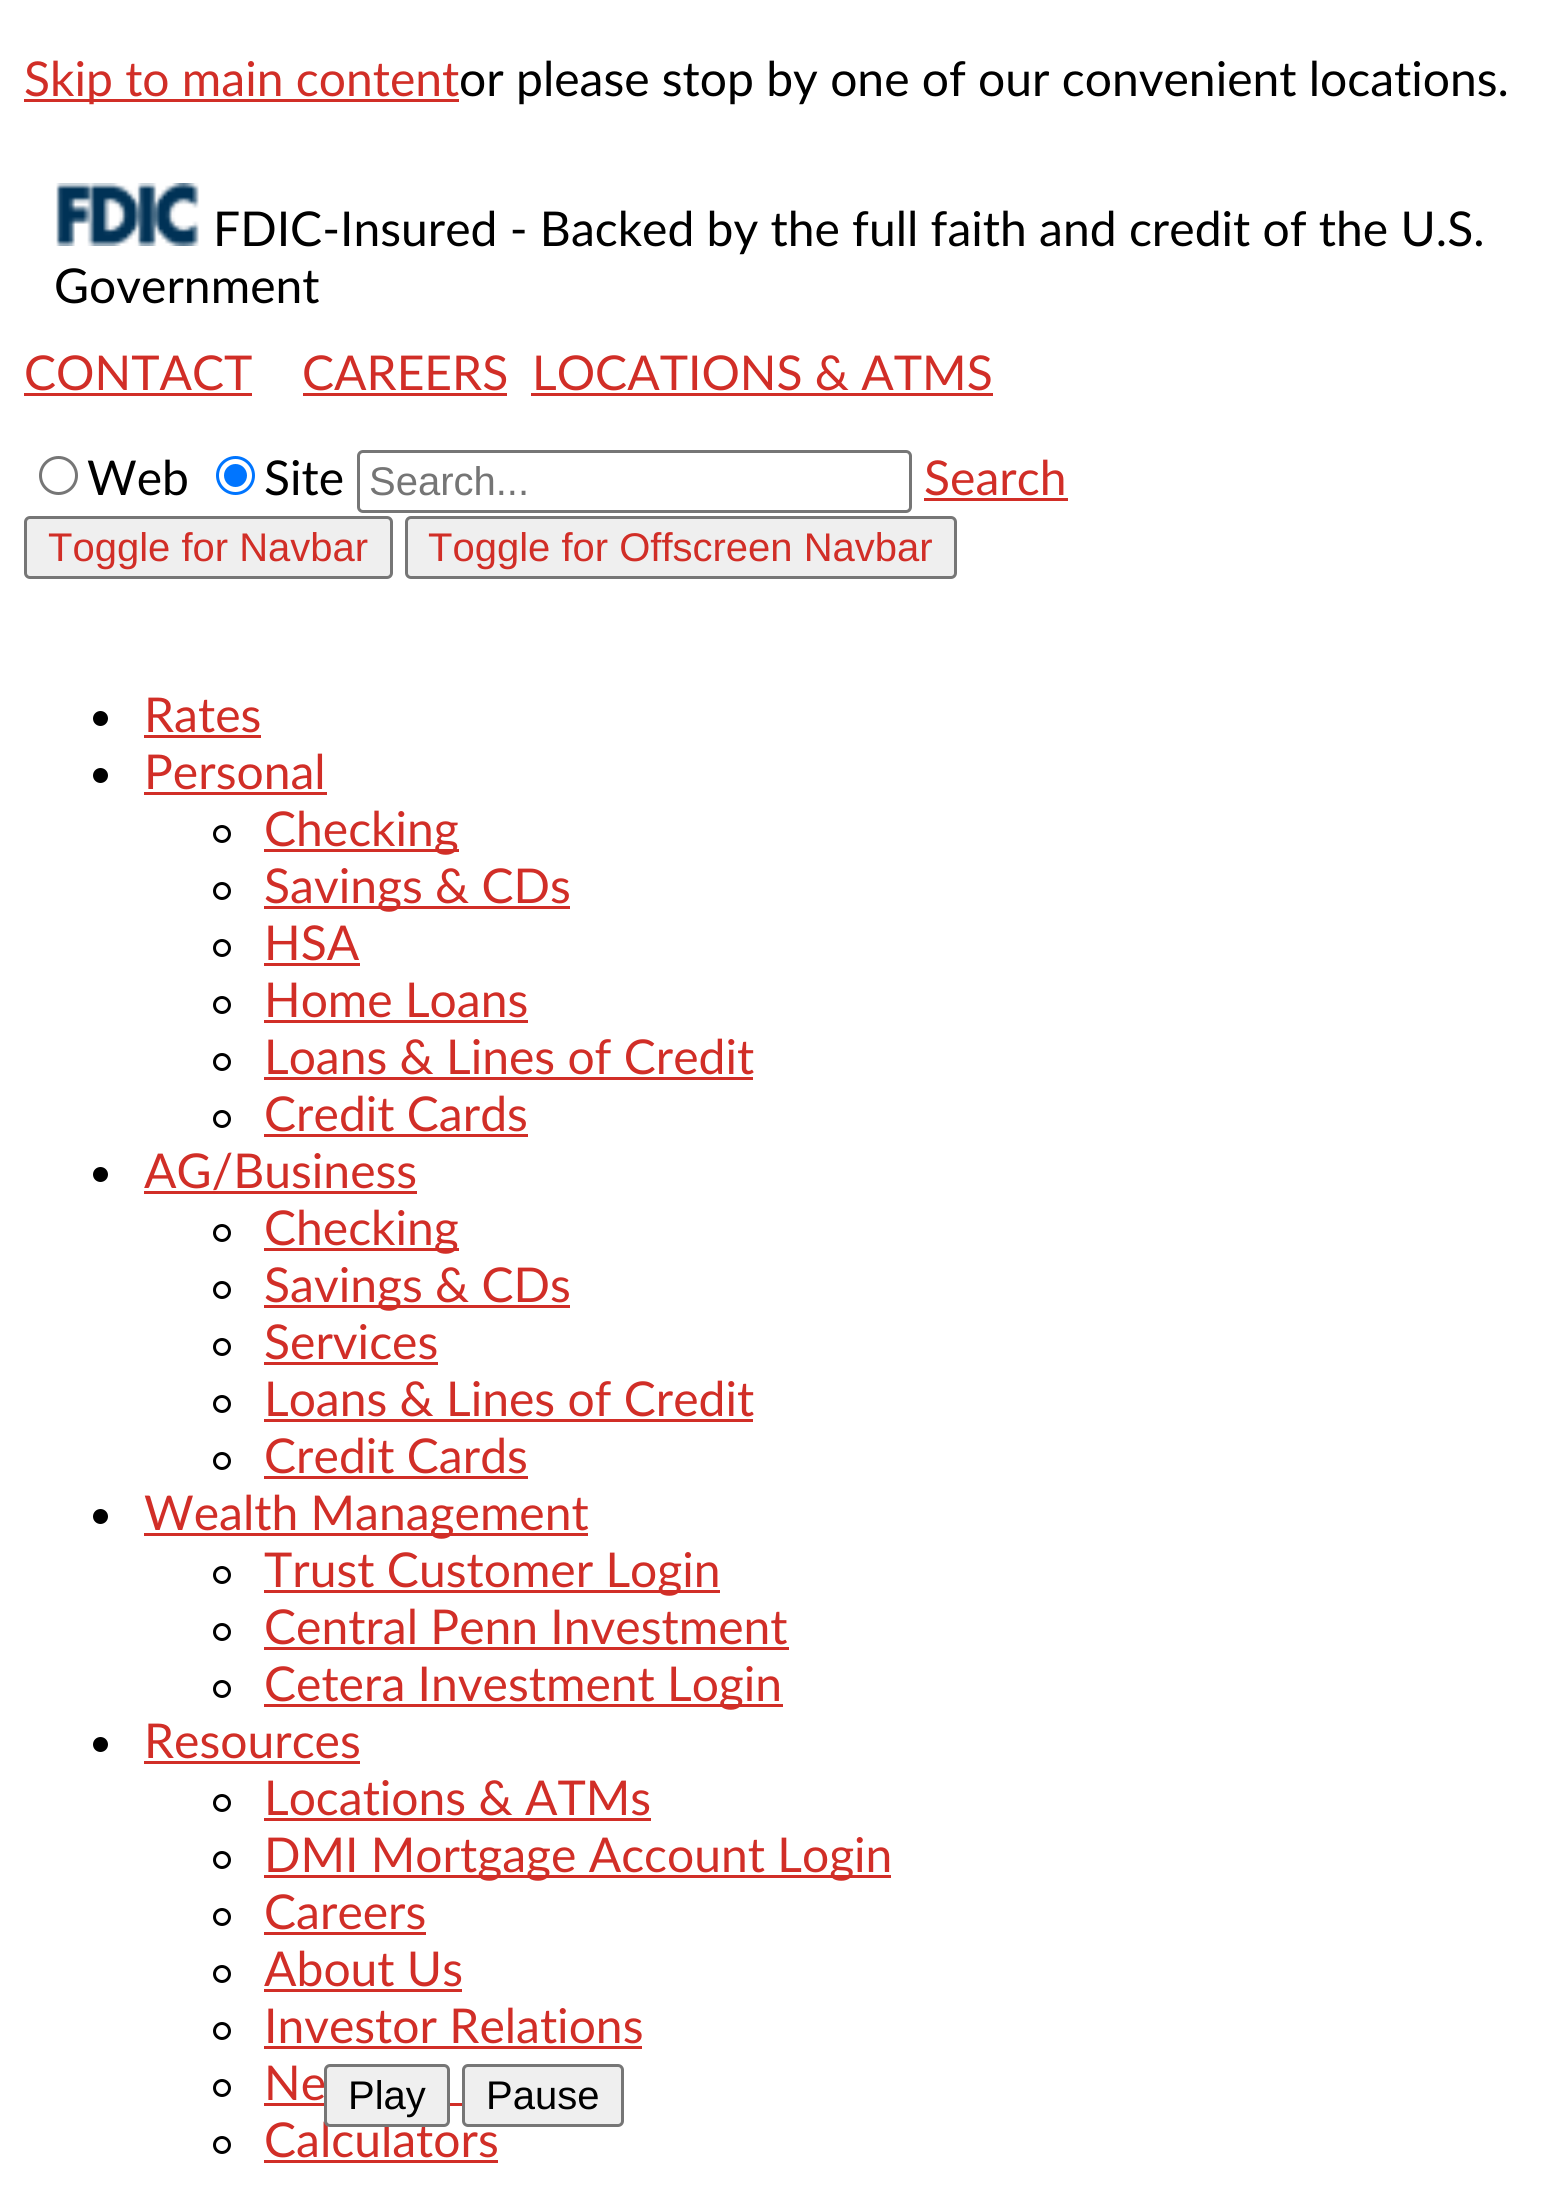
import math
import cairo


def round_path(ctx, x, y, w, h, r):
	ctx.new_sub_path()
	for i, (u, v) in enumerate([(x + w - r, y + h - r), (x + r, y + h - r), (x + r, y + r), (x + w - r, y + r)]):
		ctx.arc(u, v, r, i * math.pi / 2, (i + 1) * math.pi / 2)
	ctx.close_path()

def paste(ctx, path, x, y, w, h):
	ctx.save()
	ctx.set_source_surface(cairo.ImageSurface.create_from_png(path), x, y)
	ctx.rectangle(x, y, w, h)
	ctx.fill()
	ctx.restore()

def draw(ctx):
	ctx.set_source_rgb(1, 1, 1)
	ctx.paint()
	ctx.set_source_rgb(0.82, 0.18, 0.153)
	ctx.rectangle(24, 99, 435, 3)
	ctx.fill()
	ctx.select_font_face('Lato')
	ctx.set_font_size(48)
	ctx.move_to(24, 96)
	ctx.show_text('Skip to main content')
	ctx.set_source_rgb(0, 0, 0)
	ctx.move_to(459, 96)
	ctx.show_text('or please stop by one of our convenient locations.')
	paste(ctx, 'media/1.png', 56, 183, 143, 63)
	ctx.move_to(213, 246)
	ctx.show_text('FDIC-Insured - Backed by the full faith and credit of the U.S.')
	ctx.move_to(54, 303)
	ctx.show_text('Government')
	ctx.set_source_rgb(0.82, 0.18, 0.153)
	ctx.move_to(24, 390)
	ctx.show_text('CONTACT')
	ctx.rectangle(24, 393, 228, 3)
	ctx.fill()
	ctx.move_to(302, 390)
	ctx.show_text('CAREERS')
	ctx.rectangle(303, 393, 204, 3)
	ctx.fill()
	ctx.move_to(532, 390)
	ctx.show_text('LOCATIONS & ATMS')
	ctx.rectangle(531, 393, 462, 3)
	ctx.fill()
	ctx.arc(58.5, 475.5, 18, 0, 2 * math.pi)
	ctx.set_source_rgb(0.463, 0.463, 0.463)
	ctx.set_line_width(3)
	ctx.stroke()
	ctx.set_source_rgb(0, 0, 0)
	ctx.move_to(87, 495)
	ctx.show_text('Web')
	ctx.new_path()
	ctx.arc(235.5, 475.5, 18, 0, 2 * math.pi)
	ctx.set_source_rgb(0, 0.459, 1)
	ctx.stroke()
	ctx.arc(235.5, 475.5, 11.5, 0, 2 * math.pi)
	ctx.fill()
	ctx.set_source_rgb(0, 0, 0)
	ctx.move_to(264, 495)
	ctx.show_text('Site')
	round_path(ctx, 358.5, 451.5, 552, 60, 4.5)
	ctx.set_source_rgb(0.463, 0.463, 0.463)
	ctx.stroke()
	ctx.select_font_face('Liberation Sans')
	ctx.set_font_size(40)
	ctx.set_source_rgb(0.459, 0.459, 0.459)
	ctx.move_to(369, 495)
	ctx.show_text('Search...')
	ctx.select_font_face('Lato')
	ctx.set_font_size(48)
	ctx.set_source_rgb(0.82, 0.18, 0.153)
	ctx.move_to(924, 495)
	ctx.show_text('Search')
	ctx.rectangle(924, 498, 144, 3)
	ctx.fill()
	ctx.set_source_rgb(0.937, 0.937, 0.937)
	round_path(ctx, 25.5, 517.5, 366, 60, 4.5)
	ctx.fill_preserve()
	ctx.set_source_rgb(0.463, 0.463, 0.463)
	ctx.stroke()
	ctx.select_font_face('Liberation Sans')
	ctx.set_font_size(40)
	ctx.set_source_rgb(0.82, 0.18, 0.153)
	ctx.move_to(48, 561)
	ctx.show_text('Toggle for Navbar')
	ctx.set_source_rgb(0.937, 0.937, 0.937)
	round_path(ctx, 406.5, 517.5, 549, 60, 4.5)
	ctx.fill_preserve()
	ctx.set_source_rgb(0.463, 0.463, 0.463)
	ctx.stroke()
	ctx.set_source_rgb(0.82, 0.18, 0.153)
	ctx.move_to(428, 561)
	ctx.show_text('Toggle for Offscreen Navbar')
	ctx.set_source_rgb(0, 0, 0)
	ctx.new_path()
	ctx.arc(100.5, 718.5, 7.5, 0, 2 * math.pi)
	ctx.fill()
	ctx.select_font_face('Lato')
	ctx.set_font_size(48)
	ctx.set_source_rgb(0.82, 0.18, 0.153)
	ctx.move_to(144, 732)
	ctx.show_text('Rates')
	ctx.rectangle(144, 735, 117, 3)
	ctx.fill()
	ctx.set_source_rgb(0, 0, 0)
	ctx.arc(100.5, 775.5, 7.5, 0, 2 * math.pi)
	ctx.fill()
	ctx.set_source_rgb(0.82, 0.18, 0.153)
	ctx.move_to(144, 789)
	ctx.show_text('Personal')
	ctx.rectangle(144, 792, 183, 3)
	ctx.fill()
	ctx.arc(222, 834, 7.5, 0, 2 * math.pi)
	ctx.set_source_rgb(0, 0, 0)
	ctx.stroke()
	ctx.set_source_rgb(0.82, 0.18, 0.153)
	ctx.rectangle(264, 849, 195, 3)
	ctx.fill()
	ctx.move_to(264, 846)
	ctx.show_text('Checking')
	ctx.new_path()
	ctx.arc(222, 891, 7.5, 0, 2 * math.pi)
	ctx.set_source_rgb(0, 0, 0)
	ctx.stroke()
	ctx.set_source_rgb(0.82, 0.18, 0.153)
	ctx.rectangle(264, 906, 306, 3)
	ctx.fill()
	ctx.move_to(264, 903)
	ctx.show_text('Savings & CDs')
	ctx.new_path()
	ctx.arc(222, 948, 7.5, 0, 2 * math.pi)
	ctx.set_source_rgb(0, 0, 0)
	ctx.stroke()
	ctx.set_source_rgb(0.82, 0.18, 0.153)
	ctx.move_to(264, 960)
	ctx.show_text('HSA')
	ctx.rectangle(264, 963, 96, 3)
	ctx.fill()
	ctx.arc(222, 1005, 7.5, 0, 2 * math.pi)
	ctx.set_source_rgb(0, 0, 0)
	ctx.stroke()
	ctx.set_source_rgb(0.82, 0.18, 0.153)
	ctx.move_to(264, 1017)
	ctx.show_text('Home Loans')
	ctx.rectangle(264, 1020, 264, 3)
	ctx.fill()
	ctx.arc(222, 1062, 7.5, 0, 2 * math.pi)
	ctx.set_source_rgb(0, 0, 0)
	ctx.stroke()
	ctx.set_source_rgb(0.82, 0.18, 0.153)
	ctx.move_to(264, 1074)
	ctx.show_text('Loans & Lines of Credit')
	ctx.rectangle(264, 1077, 489, 3)
	ctx.fill()
	ctx.arc(222, 1119, 7.5, 0, 2 * math.pi)
	ctx.set_source_rgb(0, 0, 0)
	ctx.stroke()
	ctx.set_source_rgb(0.82, 0.18, 0.153)
	ctx.move_to(264, 1131)
	ctx.show_text('Credit Cards')
	ctx.rectangle(264, 1134, 264, 3)
	ctx.fill()
	ctx.set_source_rgb(0, 0, 0)
	ctx.arc(100.5, 1174.5, 7.5, 0, 2 * math.pi)
	ctx.fill()
	ctx.set_source_rgb(0.82, 0.18, 0.153)
	ctx.move_to(144, 1188)
	ctx.show_text('AG/Business')
	ctx.rectangle(144, 1191, 273, 3)
	ctx.fill()
	ctx.arc(222, 1233, 7.5, 0, 2 * math.pi)
	ctx.set_source_rgb(0, 0, 0)
	ctx.stroke()
	ctx.set_source_rgb(0.82, 0.18, 0.153)
	ctx.rectangle(264, 1248, 195, 3)
	ctx.fill()
	ctx.move_to(264, 1245)
	ctx.show_text('Checking')
	ctx.new_path()
	ctx.arc(222, 1290, 7.5, 0, 2 * math.pi)
	ctx.set_source_rgb(0, 0, 0)
	ctx.stroke()
	ctx.set_source_rgb(0.82, 0.18, 0.153)
	ctx.rectangle(264, 1305, 306, 3)
	ctx.fill()
	ctx.move_to(264, 1302)
	ctx.show_text('Savings & CDs')
	ctx.new_path()
	ctx.arc(222, 1347, 7.5, 0, 2 * math.pi)
	ctx.set_source_rgb(0, 0, 0)
	ctx.stroke()
	ctx.set_source_rgb(0.82, 0.18, 0.153)
	ctx.move_to(264, 1359)
	ctx.show_text('Services')
	ctx.rectangle(264, 1362, 174, 3)
	ctx.fill()
	ctx.arc(222, 1404, 7.5, 0, 2 * math.pi)
	ctx.set_source_rgb(0, 0, 0)
	ctx.stroke()
	ctx.set_source_rgb(0.82, 0.18, 0.153)
	ctx.move_to(264, 1416)
	ctx.show_text('Loans & Lines of Credit')
	ctx.rectangle(264, 1419, 489, 3)
	ctx.fill()
	ctx.arc(222, 1461, 7.5, 0, 2 * math.pi)
	ctx.set_source_rgb(0, 0, 0)
	ctx.stroke()
	ctx.set_source_rgb(0.82, 0.18, 0.153)
	ctx.move_to(264, 1473)
	ctx.show_text('Credit Cards')
	ctx.rectangle(264, 1476, 264, 3)
	ctx.fill()
	ctx.set_source_rgb(0, 0, 0)
	ctx.arc(100.5, 1516.5, 7.5, 0, 2 * math.pi)
	ctx.fill()
	ctx.set_source_rgb(0.82, 0.18, 0.153)
	ctx.rectangle(144, 1533, 444, 3)
	ctx.fill()
	ctx.move_to(144, 1530)
	ctx.show_text('Wealth Management')
	ctx.new_path()
	ctx.arc(222, 1575, 7.5, 0, 2 * math.pi)
	ctx.set_source_rgb(0, 0, 0)
	ctx.stroke()
	ctx.set_source_rgb(0.82, 0.18, 0.153)
	ctx.rectangle(264, 1590, 456, 3)
	ctx.fill()
	ctx.move_to(264, 1587)
	ctx.show_text('Trust Customer Login')
	ctx.new_path()
	ctx.arc(222, 1632, 7.5, 0, 2 * math.pi)
	ctx.set_source_rgb(0, 0, 0)
	ctx.stroke()
	ctx.set_source_rgb(0.82, 0.18, 0.153)
	ctx.move_to(264, 1644)
	ctx.show_text('Central Penn Investment')
	ctx.rectangle(264, 1647, 525, 3)
	ctx.fill()
	ctx.arc(222, 1689, 7.5, 0, 2 * math.pi)
	ctx.set_source_rgb(0, 0, 0)
	ctx.stroke()
	ctx.set_source_rgb(0.82, 0.18, 0.153)
	ctx.rectangle(264, 1704, 519, 3)
	ctx.fill()
	ctx.move_to(264, 1701)
	ctx.show_text('Cetera Investment Login')
	ctx.set_source_rgb(0, 0, 0)
	ctx.new_path()
	ctx.arc(100.5, 1744.5, 7.5, 0, 2 * math.pi)
	ctx.fill()
	ctx.set_source_rgb(0.82, 0.18, 0.153)
	ctx.move_to(144, 1758)
	ctx.show_text('Resources')
	ctx.rectangle(144, 1761, 216, 3)
	ctx.fill()
	ctx.arc(222, 1803, 7.5, 0, 2 * math.pi)
	ctx.set_source_rgb(0, 0, 0)
	ctx.stroke()
	ctx.set_source_rgb(0.82, 0.18, 0.153)
	ctx.move_to(264, 1815)
	ctx.show_text('Locations & ATMs')
	ctx.rectangle(264, 1818, 387, 3)
	ctx.fill()
	ctx.arc(222, 1860, 7.5, 0, 2 * math.pi)
	ctx.set_source_rgb(0, 0, 0)
	ctx.stroke()
	ctx.set_source_rgb(0.82, 0.18, 0.153)
	ctx.rectangle(264, 1875, 627, 3)
	ctx.fill()
	ctx.move_to(264, 1872)
	ctx.show_text('DMI Mortgage Account Login')
	ctx.new_path()
	ctx.arc(222, 1917, 7.5, 0, 2 * math.pi)
	ctx.set_source_rgb(0, 0, 0)
	ctx.stroke()
	ctx.set_source_rgb(0.82, 0.18, 0.153)
	ctx.move_to(264, 1929)
	ctx.show_text('Careers')
	ctx.rectangle(264, 1932, 162, 3)
	ctx.fill()
	ctx.arc(222, 1974, 7.5, 0, 2 * math.pi)
	ctx.set_source_rgb(0, 0, 0)
	ctx.stroke()
	ctx.set_source_rgb(0.82, 0.18, 0.153)
	ctx.move_to(264, 1986)
	ctx.show_text('About Us')
	ctx.rectangle(264, 1989, 198, 3)
	ctx.fill()
	ctx.arc(222, 2031, 7.5, 0, 2 * math.pi)
	ctx.set_source_rgb(0, 0, 0)
	ctx.stroke()
	ctx.set_source_rgb(0.82, 0.18, 0.153)
	ctx.move_to(264, 2043)
	ctx.show_text('Investor Relations')
	ctx.rectangle(264, 2046, 378, 3)
	ctx.fill()
	ctx.arc(222, 2088, 7.5, 0, 2 * math.pi)
	ctx.set_source_rgb(0, 0, 0)
	ctx.stroke()
	ctx.set_source_rgb(0.82, 0.18, 0.153)
	ctx.move_to(264, 2100)
	ctx.show_text('Ne')
	ctx.rectangle(264, 2103, 198, 3)
	ctx.fill()
	ctx.arc(222, 2145, 7.5, 0, 2 * math.pi)
	ctx.set_source_rgb(0, 0, 0)
	ctx.stroke()
	ctx.set_source_rgb(0.82, 0.18, 0.153)
	ctx.move_to(264, 2157)
	ctx.show_text('Calculators')
	ctx.rectangle(264, 2160, 234, 3)
	ctx.fill()
	ctx.set_source_rgb(0.937, 0.937, 0.937)
	round_path(ctx, 325.5, 2065.5, 123, 60, 4.5)
	ctx.fill_preserve()
	ctx.set_source_rgb(0.463, 0.463, 0.463)
	ctx.stroke()
	ctx.select_font_face('Liberation Sans')
	ctx.set_font_size(40)
	ctx.set_source_rgb(0, 0, 0)
	ctx.move_to(348, 2109)
	ctx.show_text('Play')
	ctx.set_source_rgb(0.937, 0.937, 0.937)
	round_path(ctx, 463.5, 2065.5, 159, 60, 4.5)
	ctx.fill_preserve()
	ctx.set_source_rgb(0.463, 0.463, 0.463)
	ctx.stroke()
	ctx.set_source_rgb(0, 0, 0)
	ctx.move_to(486, 2109)
	ctx.show_text('Pause')


surface = cairo.ImageSurface(cairo.FORMAT_RGB24, 1560, 2185)
ctx = cairo.Context(surface)
options = cairo.FontOptions()
options.set_hint_metrics(cairo.HINT_METRICS_OFF)
options.set_hint_style(cairo.HINT_STYLE_NONE)
ctx.set_font_options(options)
ctx.set_miter_limit(4)
draw(ctx)
surface.write_to_png('image.png')
